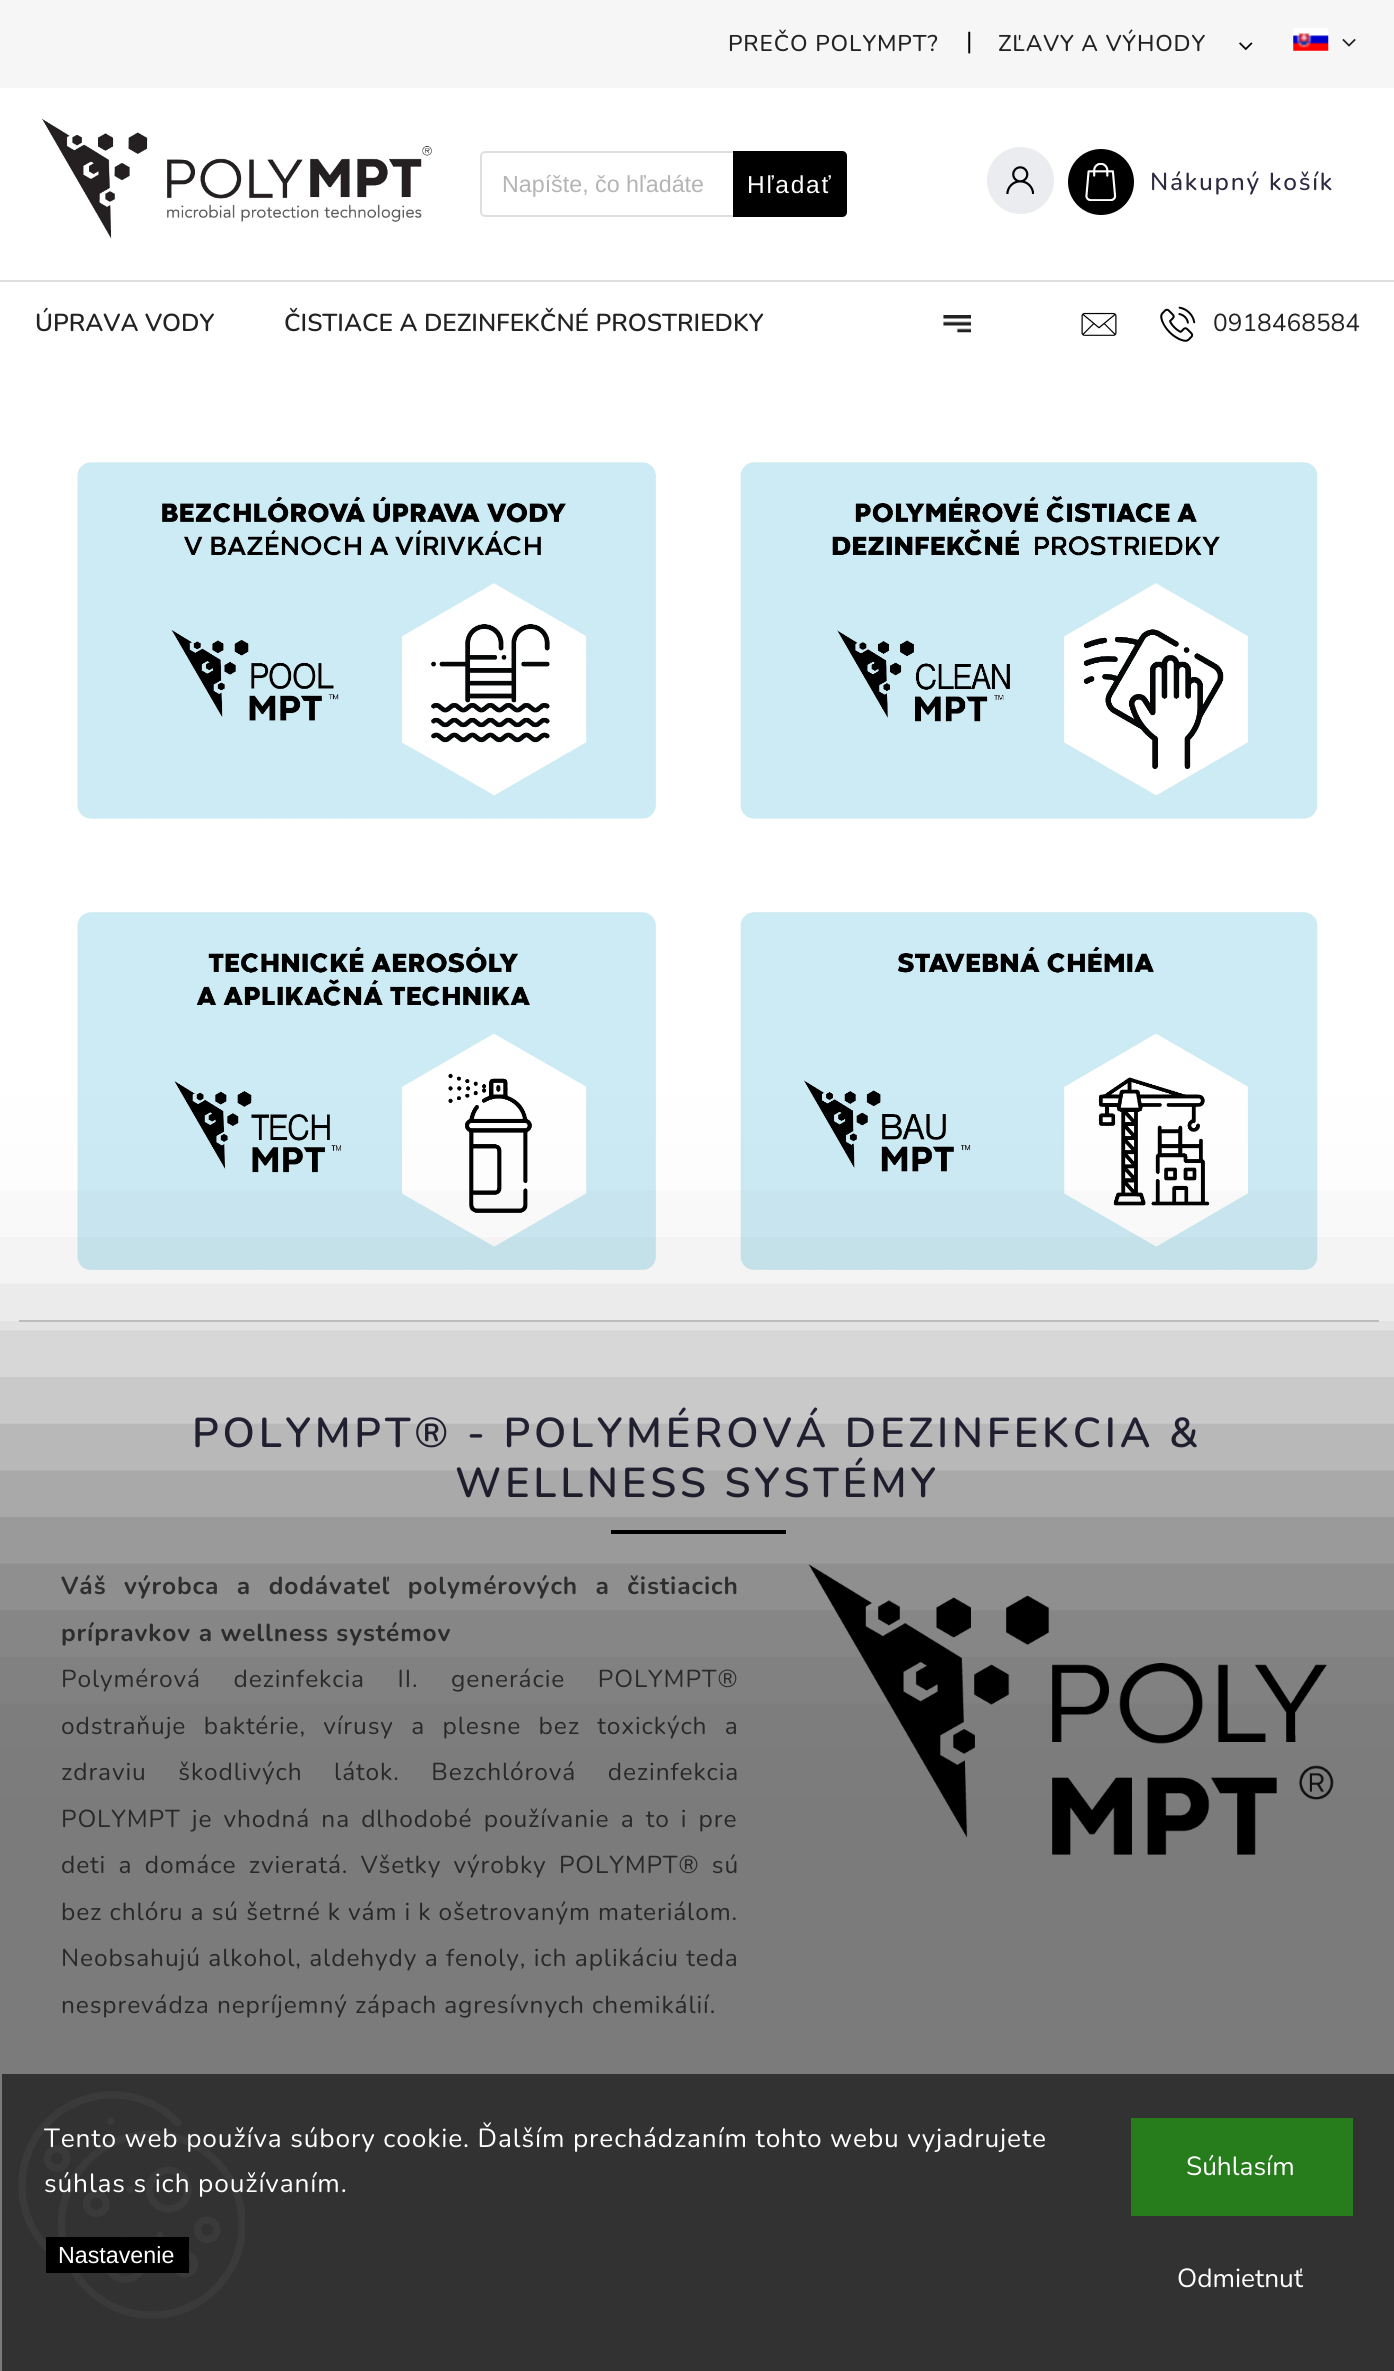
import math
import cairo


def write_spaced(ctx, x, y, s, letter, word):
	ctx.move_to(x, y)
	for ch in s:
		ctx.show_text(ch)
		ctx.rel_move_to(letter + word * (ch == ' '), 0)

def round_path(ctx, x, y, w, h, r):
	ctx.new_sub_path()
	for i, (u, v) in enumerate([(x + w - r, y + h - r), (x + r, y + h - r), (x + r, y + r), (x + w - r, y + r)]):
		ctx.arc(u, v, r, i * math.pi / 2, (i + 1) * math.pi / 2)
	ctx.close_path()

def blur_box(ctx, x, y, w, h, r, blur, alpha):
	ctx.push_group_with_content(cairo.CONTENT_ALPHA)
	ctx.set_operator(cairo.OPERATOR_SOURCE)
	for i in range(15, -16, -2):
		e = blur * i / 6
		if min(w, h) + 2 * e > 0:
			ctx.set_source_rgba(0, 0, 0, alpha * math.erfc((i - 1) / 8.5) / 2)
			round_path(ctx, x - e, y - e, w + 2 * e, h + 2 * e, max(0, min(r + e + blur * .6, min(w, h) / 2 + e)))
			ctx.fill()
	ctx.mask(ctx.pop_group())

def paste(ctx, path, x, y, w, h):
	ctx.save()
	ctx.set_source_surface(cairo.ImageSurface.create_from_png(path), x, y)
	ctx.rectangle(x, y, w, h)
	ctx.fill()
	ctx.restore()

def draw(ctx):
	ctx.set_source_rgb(1, 1, 1)
	ctx.paint()
	ctx.set_source_rgb(0.961, 0.961, 0.961)
	ctx.rectangle(0, 0, 1394, 88)
	ctx.fill()
	ctx.select_font_face('Nunito Medium')
	ctx.set_font_size(22.75)
	ctx.set_source_rgb(0.133, 0.133, 0.133)
	write_spaced(ctx, 728, 51, 'PREČO POLYMPT?', 0.88, 0)
	ctx.select_font_face('Nunito')
	ctx.set_font_size(24.5)
	ctx.set_source_rgb(0, 0, 0)
	ctx.move_to(966, 49)
	ctx.show_text('|')
	ctx.select_font_face('Nunito Medium')
	ctx.set_font_size(22.75)
	ctx.set_source_rgb(0.133, 0.133, 0.133)
	write_spaced(ctx, 998, 51, 'ZĽAVY A VÝHODY', 0.88, 0)
	paste(ctx, 'media/1.png', 1239, 42, 14, 9)
	paste(ctx, 'media/2.png', 1293, 28, 36, 23)
	paste(ctx, 'media/3.png', 1342, 38, 14, 9)
	ctx.set_source_rgb(0.875, 0.875, 0.875)
	ctx.rectangle(0, 280, 1394, 2)
	ctx.fill()
	paste(ctx, 'media/4.png', 42, 119, 390, 120)
	ctx.new_path()
	ctx.move_to(485, 152)
	ctx.line_to(734, 152)
	ctx.line_to(734, 216)
	ctx.line_to(485, 216)
	ctx.curve_to(483, 216, 481, 214, 481, 212)
	ctx.line_to(481, 156)
	ctx.curve_to(481, 154, 483, 152, 485, 152)
	ctx.close_path()
	ctx.stroke()
	ctx.select_font_face('Liberation Sans')
	ctx.set_font_size(23.25)
	ctx.set_source_rgb(0.706, 0.706, 0.706)
	ctx.move_to(502, 192)
	ctx.show_text('Napíšte, čo hľadáte')
	ctx.set_source_rgb(0, 0, 0)
	ctx.new_path()
	ctx.move_to(733, 151)
	ctx.line_to(842, 151)
	ctx.curve_to(845, 151, 847, 153, 847, 156)
	ctx.line_to(847, 212)
	ctx.curve_to(847, 215, 845, 217, 842, 217)
	ctx.line_to(733, 217)
	ctx.close_path()
	ctx.fill()
	ctx.set_font_size(24.5)
	ctx.set_source_rgb(1, 1, 1)
	write_spaced(ctx, 747, 193, 'Hľadať', 1.75, 0)
	ctx.set_source_rgb(0.918, 0.925, 0.937)
	ctx.new_path()
	ctx.arc(1020.5, 180.5, 33.5, 0, 2 * math.pi)
	ctx.fill()
	paste(ctx, 'media/5.png', 1006, 166, 28, 28)
	ctx.set_source_rgb(0, 0, 0)
	ctx.arc(1101, 182, 33, 0, 2 * math.pi)
	ctx.fill()
	paste(ctx, 'media/6.png', 1085, 163, 32, 38)
	ctx.select_font_face('Nunito Medium')
	ctx.set_source_rgb(0.169, 0.165, 0.251)
	write_spaced(ctx, 1150, 190, 'Nákupný košík', 1.75, 0)
	ctx.select_font_face('Nunito SemiBold')
	ctx.set_source_rgb(0.133, 0.133, 0.133)
	ctx.move_to(35, 331)
	ctx.show_text('ÚPRAVA VODY')
	ctx.move_to(284, 331)
	ctx.show_text('ČISTIACE A DEZINFEKČNÉ PROSTRIEDKY')
	paste(ctx, 'media/7.png', 943, 315, 28, 18)
	paste(ctx, 'media/8.png', 1081, 312, 36, 24)
	paste(ctx, 'media/9.png', 1160, 306, 36, 36)
	ctx.select_font_face('Nunito')
	ctx.move_to(1213, 331)
	ctx.show_text('0918468584')
	paste(ctx, 'media/10.png', 77, 462, 579, 357)
	paste(ctx, 'media/11.png', 740, 462, 578, 357)
	paste(ctx, 'media/12.png', 77, 912, 579, 358)
	paste(ctx, 'media/13.png', 740, 912, 578, 358)
	ctx.set_source_rgb(0.961, 0.961, 0.961)
	ctx.rectangle(0, 1321, 1394, 1050)
	ctx.fill()
	ctx.set_source_rgb(0.8, 0.8, 0.8)
	ctx.rectangle(19, 1320, 1360, 2)
	ctx.fill()
	ctx.select_font_face('Nunito SemiBold')
	ctx.set_font_size(41.65)
	ctx.set_source_rgb(0.169, 0.165, 0.251)
	write_spaced(ctx, 192, 1447, 'POLYMPT® - POLYMÉROVÁ DEZINFEKCIA &', 3.85, 0)
	write_spaced(ctx, 455, 1497, 'WELLNESS SYSTÉMY', 3.85, 0)
	ctx.set_source_rgb(0, 0, 0)
	ctx.rectangle(611, 1530, 175, 4)
	ctx.fill()
	ctx.select_font_face('Nunito', cairo.FONT_SLANT_NORMAL, cairo.FONT_WEIGHT_BOLD)
	ctx.set_font_size(24.5)
	ctx.set_source_rgb(0.314, 0.314, 0.314)
	write_spaced(ctx, 61, 1594, 'Váš výrobca a dodávateľ polymérových a čistiacich', 0.88, 10)
	write_spaced(ctx, 61, 1641, 'prípravkov a wellness systémov', 0.88, 0)
	ctx.select_font_face('Nunito')
	write_spaced(ctx, 61, 1687, 'Polymérová dezinfekcia II. generácie POLYMPT®', 0.88, 25.5)
	write_spaced(ctx, 61, 1734, 'odstraňuje baktérie, vírusy a plesne bez toxických a', 0.88, 10.25)
	write_spaced(ctx, 61, 1780, 'zdraviu škodlivých látok. Bezchlórová dezinfekcia', 0.88, 24.5)
	write_spaced(ctx, 61, 1827, 'POLYMPT je vhodná na dlhodobé používanie a to i pre', 0.88, 4)
	write_spaced(ctx, 61, 1873, 'deti a domáce zvieratá. Všetky výrobky POLYMPT® sú', 0.88, 5.25)
	write_spaced(ctx, 61, 1920, 'bez chlóru a sú šetrné k vám i k ošetrovaným materiálom.', 0.88, 0)
	write_spaced(ctx, 61, 1966, 'Neobsahujú alkohol, aldehydy a fenoly, ich aplikáciu teda', 0.88, 0.25)
	write_spaced(ctx, 61, 2013, 'nesprevádza nepríjemný zápach agresívnych chemikálií.', 0.88, 0)
	paste(ctx, 'media/14.png', 808, 1564, 526, 291)
	ctx.save()
	ctx.set_fill_rule(cairo.FILL_RULE_EVEN_ODD)
	ctx.new_path()
	ctx.move_to(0, 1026)
	ctx.line_to(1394, 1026)
	ctx.line_to(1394, 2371)
	ctx.line_to(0, 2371)
	ctx.close_path()
	ctx.move_to(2, 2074)
	ctx.line_to(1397, 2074)
	ctx.line_to(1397, 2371)
	ctx.line_to(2, 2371)
	ctx.close_path()
	ctx.clip()
	ctx.set_source_rgb(0, 0, 0)
	blur_box(ctx, -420, 1447, 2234, 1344, 0, 140, 0.5)
	ctx.restore()
	ctx.set_source_rgb(0.196, 0.196, 0.196)
	ctx.rectangle(2, 2074, 1392, 297)
	ctx.fill()
	paste(ctx, 'media/15.png', 18, 2091, 227, 228)
	ctx.set_font_size(26.25)
	ctx.set_source_rgb(1, 1, 1)
	write_spaced(ctx, 44, 2147, 'Tento web používa súbory cookie. Ďalším prechádzaním tohto webu vyjadrujete', 0.88, 0)
	write_spaced(ctx, 44, 2192, 'súhlas s ich používaním.', 0.88, 0)
	ctx.set_source_rgb(0, 0, 0)
	ctx.rectangle(46, 2237, 143, 36)
	ctx.fill()
	ctx.select_font_face('Liberation Sans')
	ctx.set_font_size(23.25)
	ctx.set_source_rgb(1, 1, 1)
	ctx.move_to(58, 2263)
	ctx.show_text('Nastavenie')
	ctx.set_source_rgb(0.153, 0.486, 0.106)
	ctx.rectangle(1131, 2118, 222, 98)
	ctx.fill()
	ctx.select_font_face('Nunito')
	ctx.set_font_size(26.25)
	ctx.set_source_rgb(1, 1, 1)
	ctx.move_to(1186, 2175)
	ctx.show_text('Súhlasím')
	ctx.move_to(1177, 2287)
	ctx.show_text('Odmietnuť')


surface = cairo.ImageSurface(cairo.FORMAT_RGB24, 1394, 2371)
ctx = cairo.Context(surface)
options = cairo.FontOptions()
options.set_hint_metrics(cairo.HINT_METRICS_OFF)
options.set_hint_style(cairo.HINT_STYLE_NONE)
ctx.set_font_options(options)
ctx.set_miter_limit(4)
draw(ctx)
surface.write_to_png('image.png')
